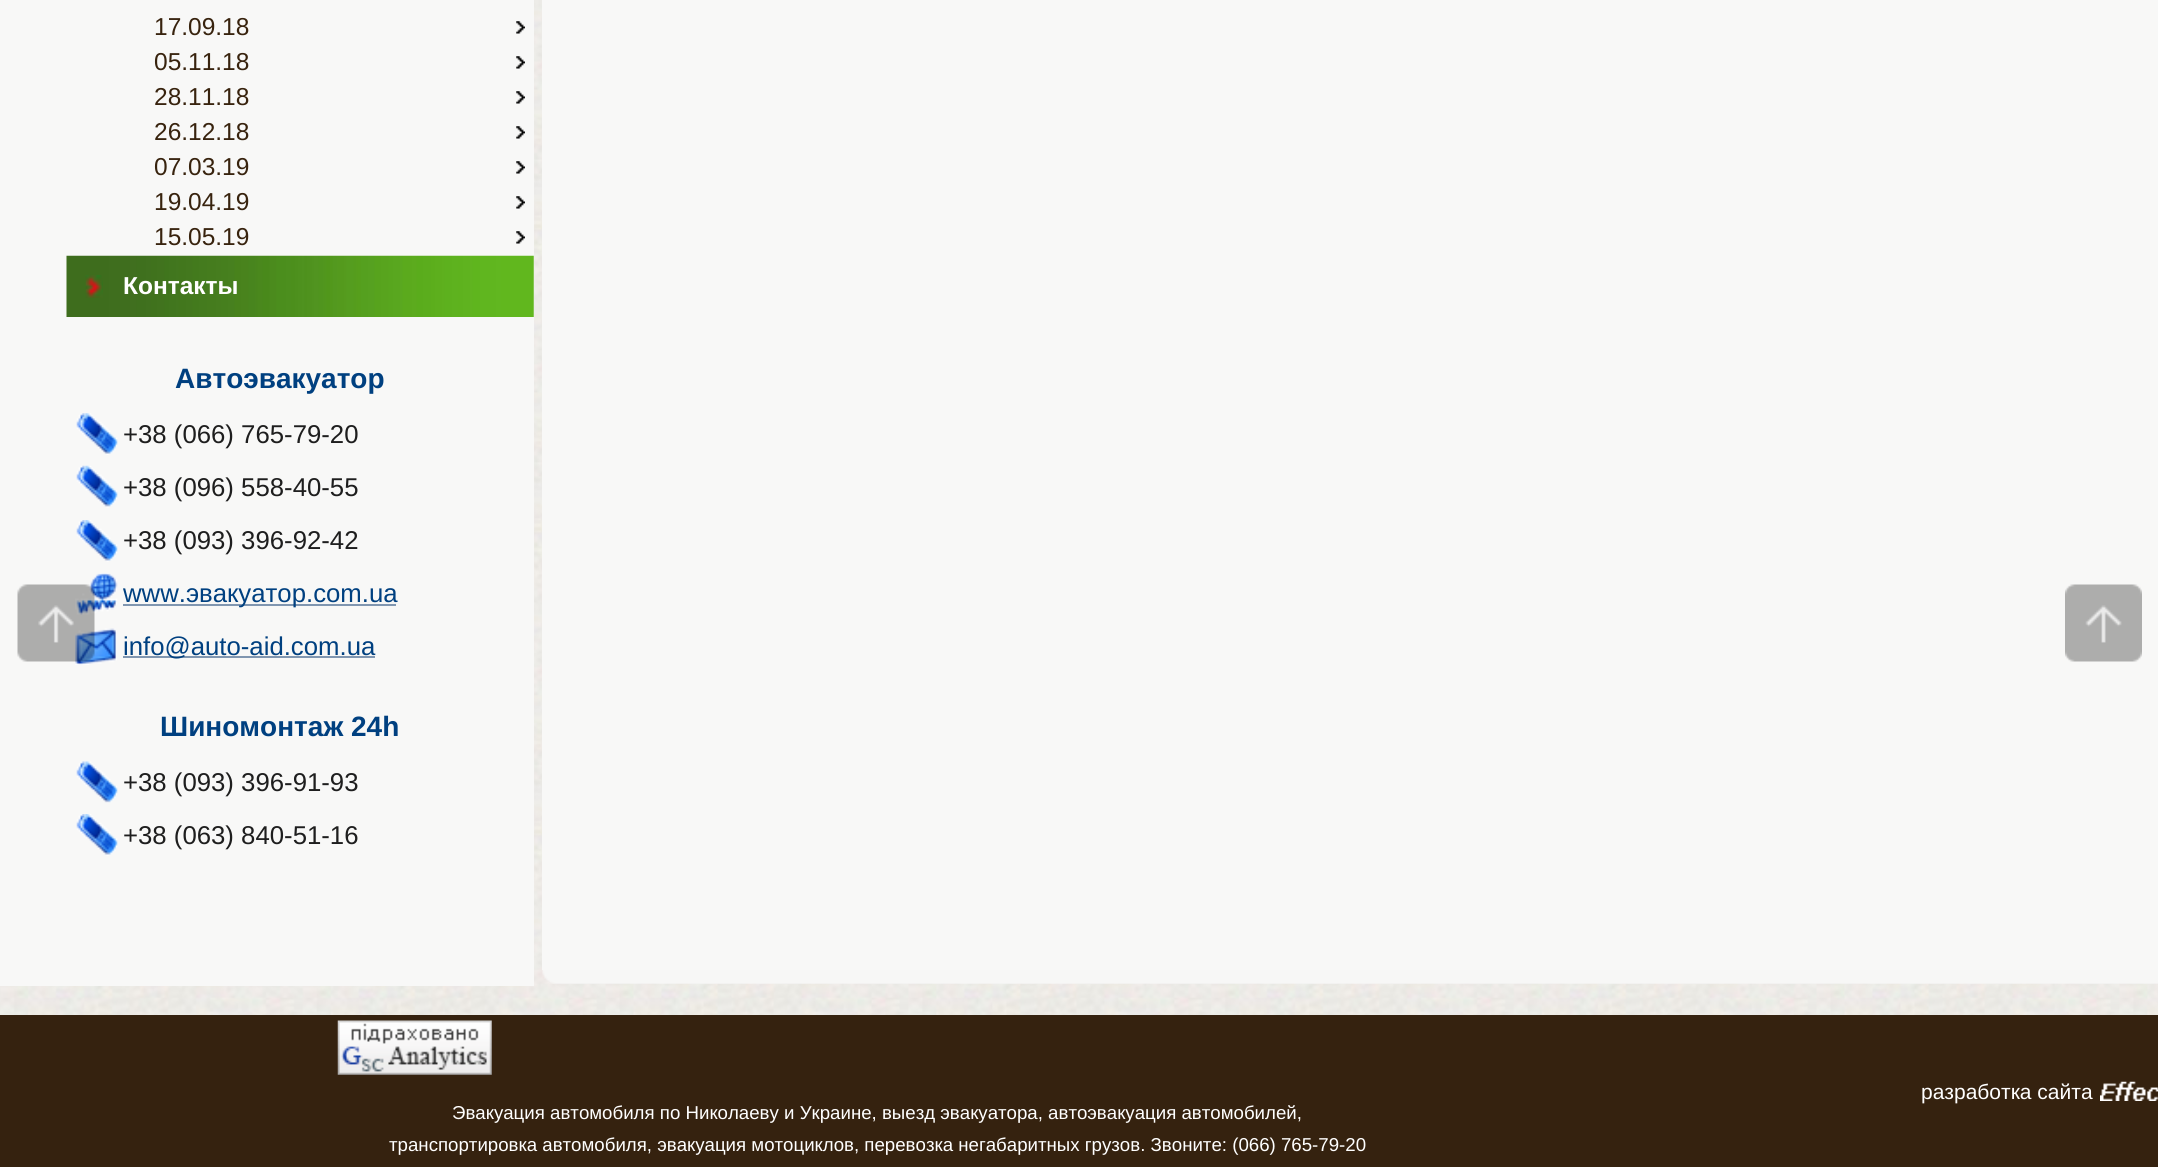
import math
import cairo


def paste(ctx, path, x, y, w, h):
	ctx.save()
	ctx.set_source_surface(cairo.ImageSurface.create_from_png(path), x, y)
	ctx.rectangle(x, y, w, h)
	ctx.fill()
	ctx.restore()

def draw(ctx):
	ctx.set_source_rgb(1, 1, 1)
	ctx.paint()
	paste(ctx, 'media/1.png', 0, 0, 2158, 1015)
	ctx.set_source_rgb(0.969, 0.969, 0.965)
	ctx.rectangle(0, 0, 534, 986)
	ctx.fill()
	paste(ctx, 'media/10.png', 75, 573, 43, 42)
	paste(ctx, 'media/11.png', 75, 628, 42, 37)
	paste(ctx, 'media/2.png', 17, 584, 78, 78)
	ctx.select_font_face('Liberation Sans')
	ctx.set_font_size(24.5)
	ctx.set_source_rgb(0.22, 0.137, 0.055)
	ctx.move_to(154, 35)
	ctx.show_text('17.09.18')
	paste(ctx, 'media/3.png', 516, 21, 9, 13)
	ctx.move_to(154, 70)
	ctx.show_text('05.11.18')
	paste(ctx, 'media/4.png', 516, 56, 9, 13)
	ctx.move_to(154, 105)
	ctx.show_text('28.11.18')
	paste(ctx, 'media/4.png', 516, 91, 9, 13)
	ctx.move_to(154, 140)
	ctx.show_text('26.12.18')
	paste(ctx, 'media/4.png', 516, 126, 9, 13)
	ctx.move_to(154, 175)
	ctx.show_text('07.03.19')
	paste(ctx, 'media/4.png', 516, 161, 9, 13)
	ctx.move_to(154, 210)
	ctx.show_text('19.04.19')
	paste(ctx, 'media/4.png', 516, 196, 9, 13)
	ctx.move_to(154, 245)
	ctx.show_text('15.05.19')
	paste(ctx, 'media/4.png', 516, 231, 9, 13)
	paste(ctx, 'media/5.png', 66, 255, 468, 62)
	paste(ctx, 'media/6.png', 85, 275, 18, 23)
	ctx.select_font_face('Liberation Sans', cairo.FONT_SLANT_NORMAL, cairo.FONT_WEIGHT_BOLD)
	ctx.set_source_rgb(1, 1, 1)
	ctx.move_to(123, 294)
	ctx.show_text('Контакты')
	ctx.set_font_size(28)
	ctx.set_source_rgb(0, 0.251, 0.502)
	ctx.move_to(175, 388)
	ctx.show_text('Автоэвакуатор')
	paste(ctx, 'media/7.png', 76, 413, 42, 42)
	ctx.select_font_face('Liberation Sans')
	ctx.set_font_size(25.75)
	ctx.set_source_rgb(0.118, 0.118, 0.118)
	ctx.move_to(123, 443)
	ctx.show_text('+38 (066) 765-79-20')
	paste(ctx, 'media/8.png', 76, 465, 42, 43)
	ctx.move_to(123, 496)
	ctx.show_text('+38 (096) 558-40-55')
	paste(ctx, 'media/9.png', 76, 520, 42, 42)
	ctx.move_to(123, 549)
	ctx.show_text('+38 (093) 396-92-42')
	ctx.set_source_rgb(0.502, 0.588, 0.69)
	ctx.rectangle(123, 604, 273, 2)
	ctx.fill()
	ctx.set_source_rgb(0, 0.251, 0.502)
	ctx.move_to(123, 602)
	ctx.show_text('www.эвакуатор.com.ua')
	ctx.set_source_rgb(0.502, 0.588, 0.69)
	ctx.rectangle(123, 656, 252, 2)
	ctx.fill()
	ctx.set_source_rgb(0, 0.251, 0.502)
	ctx.move_to(123, 655)
	ctx.show_text('info@auto-aid.com.ua')
	ctx.select_font_face('Liberation Sans', cairo.FONT_SLANT_NORMAL, cairo.FONT_WEIGHT_BOLD)
	ctx.set_font_size(28)
	ctx.move_to(160, 736)
	ctx.show_text('Шиномонтаж 24h')
	paste(ctx, 'media/12.png', 76, 761, 42, 42)
	ctx.select_font_face('Liberation Sans')
	ctx.set_font_size(25.75)
	ctx.set_source_rgb(0.118, 0.118, 0.118)
	ctx.move_to(123, 791)
	ctx.show_text('+38 (093) 396-91-93')
	paste(ctx, 'media/9.png', 76, 814, 42, 42)
	ctx.move_to(123, 844)
	ctx.show_text('+38 (063) 840-51-16')
	ctx.set_source_rgb(0.969, 0.969, 0.965)
	ctx.rectangle(542, 0, 1616, 970)
	ctx.fill()
	paste(ctx, 'media/13.png', 542, 970, 1616, 14)
	ctx.set_source_rgb(0.208, 0.133, 0.059)
	ctx.rectangle(0, 1015, 2158, 152)
	ctx.fill()
	ctx.set_font_size(21)
	ctx.set_source_rgb(1, 1, 1)
	ctx.move_to(1921, 1099)
	ctx.show_text('разработка сайта')
	paste(ctx, 'media/14.png', 2100, 1081, 58, 20)
	paste(ctx, 'media/15.png', 337, 1020, 155, 55)
	ctx.set_font_size(18.67)
	ctx.move_to(452, 1119)
	ctx.show_text('Эвакуация автомобиля по Николаеву и Украине, выезд эвакуатора, автоэвакуация автомобилей,')
	ctx.move_to(389, 1151)
	ctx.show_text('транспортировка автомобиля, эвакуация мотоциклов, перевозка негабаритных грузов. Звоните: (066) 765-79-20')
	paste(ctx, 'media/16.png', 2065, 584, 77, 78)


surface = cairo.ImageSurface(cairo.FORMAT_RGB24, 2158, 1167)
ctx = cairo.Context(surface)
options = cairo.FontOptions()
options.set_hint_metrics(cairo.HINT_METRICS_OFF)
options.set_hint_style(cairo.HINT_STYLE_NONE)
ctx.set_font_options(options)
ctx.set_miter_limit(4)
draw(ctx)
surface.write_to_png('image.png')
